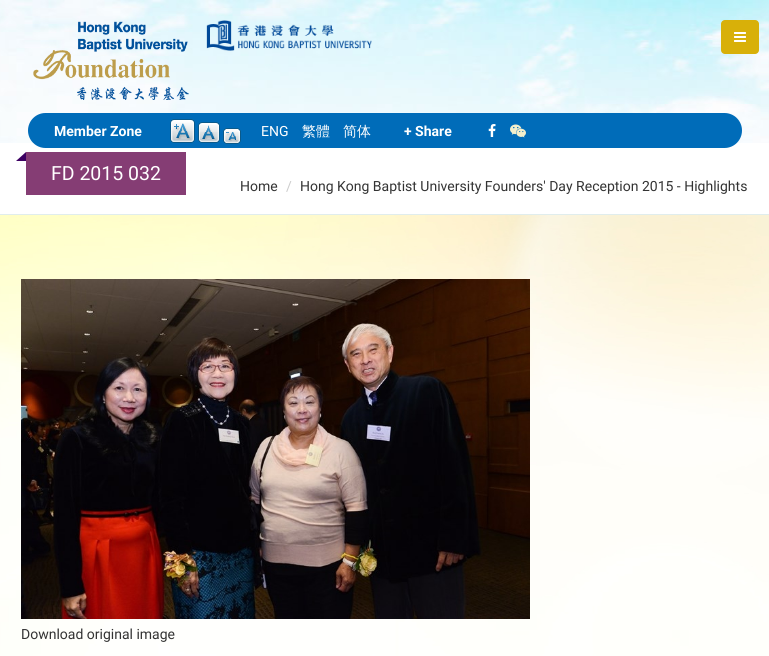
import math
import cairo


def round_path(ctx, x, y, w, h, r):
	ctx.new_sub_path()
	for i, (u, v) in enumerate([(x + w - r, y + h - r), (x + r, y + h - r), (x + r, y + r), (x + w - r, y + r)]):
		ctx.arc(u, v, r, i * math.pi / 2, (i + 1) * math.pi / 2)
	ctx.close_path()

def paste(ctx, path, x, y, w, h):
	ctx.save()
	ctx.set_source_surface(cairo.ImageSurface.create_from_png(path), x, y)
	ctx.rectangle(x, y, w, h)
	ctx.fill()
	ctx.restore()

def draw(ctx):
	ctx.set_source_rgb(1, 1, 1)
	ctx.paint()
	paste(ctx, 'media/1.png', 0, 0, 769, 143)
	ctx.set_source_rgb(0.847, 0.69, 0.039)
	round_path(ctx, 721, 20, 38, 34, 4)
	ctx.fill()
	paste(ctx, 'media/2.png', 734, 32, 12, 10)
	paste(ctx, 'media/3.png', 33, 21, 156, 79)
	paste(ctx, 'media/4.png', 206, 20, 166, 31)
	ctx.set_source_rgb(0, 0.424, 0.725)
	round_path(ctx, 28, 113, 714, 35, 17.5)
	ctx.fill()
	ctx.select_font_face('Roboto', cairo.FONT_SLANT_NORMAL, cairo.FONT_WEIGHT_BOLD)
	ctx.set_font_size(14)
	ctx.set_source_rgb(1, 1, 1)
	ctx.move_to(54, 136)
	ctx.show_text('Member Zone')
	paste(ctx, 'media/5.png', 170, 119, 25, 24)
	paste(ctx, 'media/6.png', 198, 122, 22, 21)
	paste(ctx, 'media/7.png', 223, 128, 18, 16)
	ctx.select_font_face('Roboto')
	ctx.move_to(261, 136)
	ctx.show_text('ENG')
	ctx.select_font_face('WenQuanYi Zen Hei Medium')
	ctx.move_to(302, 136)
	ctx.show_text('繁體')
	ctx.move_to(343, 136)
	ctx.show_text('简体')
	ctx.select_font_face('Roboto', cairo.FONT_SLANT_NORMAL, cairo.FONT_WEIGHT_BOLD)
	ctx.move_to(404, 136)
	ctx.show_text('+ Share')
	paste(ctx, 'media/8.png', 488, 124, 8, 13)
	paste(ctx, 'media/9.png', 510, 124, 16, 14)
	paste(ctx, 'media/10.png', 0, 215, 769, 441)
	ctx.set_source_rgb(0.878, 0.929, 0.929)
	ctx.rectangle(0, 214, 769, 1)
	ctx.fill()
	ctx.set_source_rgb(0.522, 0.239, 0.455)
	ctx.rectangle(26, 152, 160, 43)
	ctx.fill()
	ctx.set_source_rgb(0.235, 0, 0.384)
	ctx.new_path()
	ctx.move_to(26, 152)
	ctx.line_to(26, 161)
	ctx.line_to(16, 161)
	ctx.close_path()
	ctx.fill()
	ctx.select_font_face('Roboto')
	ctx.set_font_size(19.5)
	ctx.set_source_rgb(1, 1, 1)
	ctx.move_to(51, 180)
	ctx.show_text('FD 2015 032')
	ctx.set_font_size(14)
	ctx.set_source_rgb(0.2, 0.2, 0.2)
	ctx.move_to(240, 191)
	ctx.show_text('Home')
	ctx.set_source_rgb(0.8, 0.8, 0.8)
	ctx.move_to(286, 191)
	ctx.show_text('/')
	ctx.set_source_rgb(0.2, 0.2, 0.2)
	ctx.move_to(300, 191)
	ctx.show_text('Hong Kong Baptist University Founders\' Day Reception 2015 - Highlights')
	paste(ctx, 'media/11.png', 21, 279, 509, 340)
	ctx.move_to(21, 639)
	ctx.show_text('Download original image')


surface = cairo.ImageSurface(cairo.FORMAT_RGB24, 769, 656)
ctx = cairo.Context(surface)
options = cairo.FontOptions()
options.set_hint_metrics(cairo.HINT_METRICS_OFF)
options.set_hint_style(cairo.HINT_STYLE_NONE)
ctx.set_font_options(options)
ctx.set_miter_limit(4)
draw(ctx)
surface.write_to_png('image.png')
